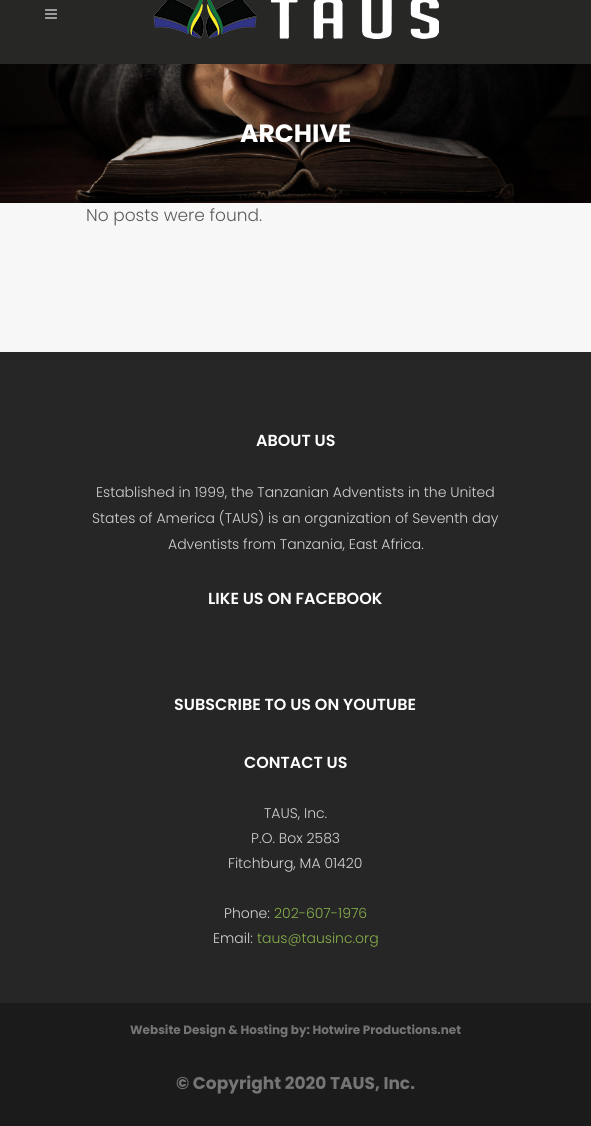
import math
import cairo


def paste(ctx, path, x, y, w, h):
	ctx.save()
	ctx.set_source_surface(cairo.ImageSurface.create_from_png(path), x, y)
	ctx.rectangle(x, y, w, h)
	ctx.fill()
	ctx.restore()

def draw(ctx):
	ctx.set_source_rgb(0.965, 0.965, 0.965)
	ctx.paint()
	ctx.set_source_rgb(0.153, 0.157, 0.149)
	ctx.rectangle(0, 0, 591, 64)
	ctx.fill()
	paste(ctx, 'media/1.png', 45, 9, 12, 10)
	paste(ctx, 'media/2.png', 153, 0, 286, 39)
	paste(ctx, 'media/3.png', 0, 64, 591, 139)
	ctx.select_font_face('Poppins', cairo.FONT_SLANT_NORMAL, cairo.FONT_WEIGHT_BOLD)
	ctx.set_font_size(25)
	ctx.set_source_rgb(1, 1, 1)
	ctx.move_to(240, 142)
	ctx.show_text('ARCHIVE')
	ctx.select_font_face('Poppins Light')
	ctx.set_font_size(17)
	ctx.set_source_rgb(0.357, 0.357, 0.357)
	ctx.move_to(86, 221)
	ctx.show_text('No posts were found.')
	ctx.set_source_rgb(0.149, 0.149, 0.149)
	ctx.rectangle(0, 352, 591, 651)
	ctx.fill()
	ctx.select_font_face('Poppins SemiBold')
	ctx.set_font_size(16)
	ctx.set_source_rgb(1, 1, 1)
	ctx.move_to(256, 446)
	ctx.show_text('ABOUT US')
	ctx.select_font_face('Poppins Light')
	ctx.set_font_size(14)
	ctx.set_source_rgb(0.827, 0.827, 0.827)
	for x, y, s in [
		(96, 497, 'Established in 1999, the Tanzanian Adventists in the United'),
		(92, 523, 'States of America (TAUS) is an organization of Seventh day'),
		(168, 549, 'Adventists from Tanzania, East Africa.'),
	]:
		ctx.move_to(x, y)
		ctx.show_text(s)
	ctx.select_font_face('Poppins SemiBold')
	ctx.set_font_size(16)
	ctx.set_source_rgb(1, 1, 1)
	for x, y, s in [
		(208, 604, 'LIKE US ON FACEBOOK'),
		(174, 710, 'SUBSCRIBE TO US ON YOUTUBE'),
		(244, 768, 'CONTACT US'),
	]:
		ctx.move_to(x, y)
		ctx.show_text(s)
	ctx.select_font_face('Poppins Light')
	ctx.set_font_size(14)
	ctx.set_source_rgb(0.827, 0.827, 0.827)
	for x, y, s in [
		(264, 818, 'TAUS, Inc.'),
		(251, 843, 'P.O. Box 2583'),
		(228, 868, 'Fitchburg, MA 01420'),
		(224, 918, 'Phone:'),
	]:
		ctx.move_to(x, y)
		ctx.show_text(s)
	ctx.set_source_rgb(0.525, 0.686, 0.286)
	ctx.move_to(274, 918)
	ctx.show_text('202-607-1976')
	ctx.set_source_rgb(0.827, 0.827, 0.827)
	ctx.move_to(213, 943)
	ctx.show_text('Email:')
	ctx.set_source_rgb(0.525, 0.686, 0.286)
	ctx.move_to(257, 943)
	ctx.show_text('taus@tausinc.org')
	ctx.set_source_rgb(0.106, 0.106, 0.106)
	ctx.rectangle(0, 1003, 591, 123)
	ctx.fill()
	ctx.select_font_face('Poppins', cairo.FONT_SLANT_NORMAL, cairo.FONT_WEIGHT_BOLD)
	ctx.set_font_size(12)
	ctx.set_source_rgb(0.459, 0.459, 0.459)
	ctx.move_to(130, 1034)
	ctx.show_text('Website Design & Hosting by: Hotwire Productions.net')
	ctx.set_font_size(17)
	ctx.move_to(176, 1089)
	ctx.show_text('© Copyright 2020 TAUS, Inc.')


surface = cairo.ImageSurface(cairo.FORMAT_RGB24, 591, 1126)
ctx = cairo.Context(surface)
options = cairo.FontOptions()
options.set_hint_metrics(cairo.HINT_METRICS_OFF)
options.set_hint_style(cairo.HINT_STYLE_NONE)
ctx.set_font_options(options)
ctx.set_miter_limit(4)
draw(ctx)
surface.write_to_png('image.png')
